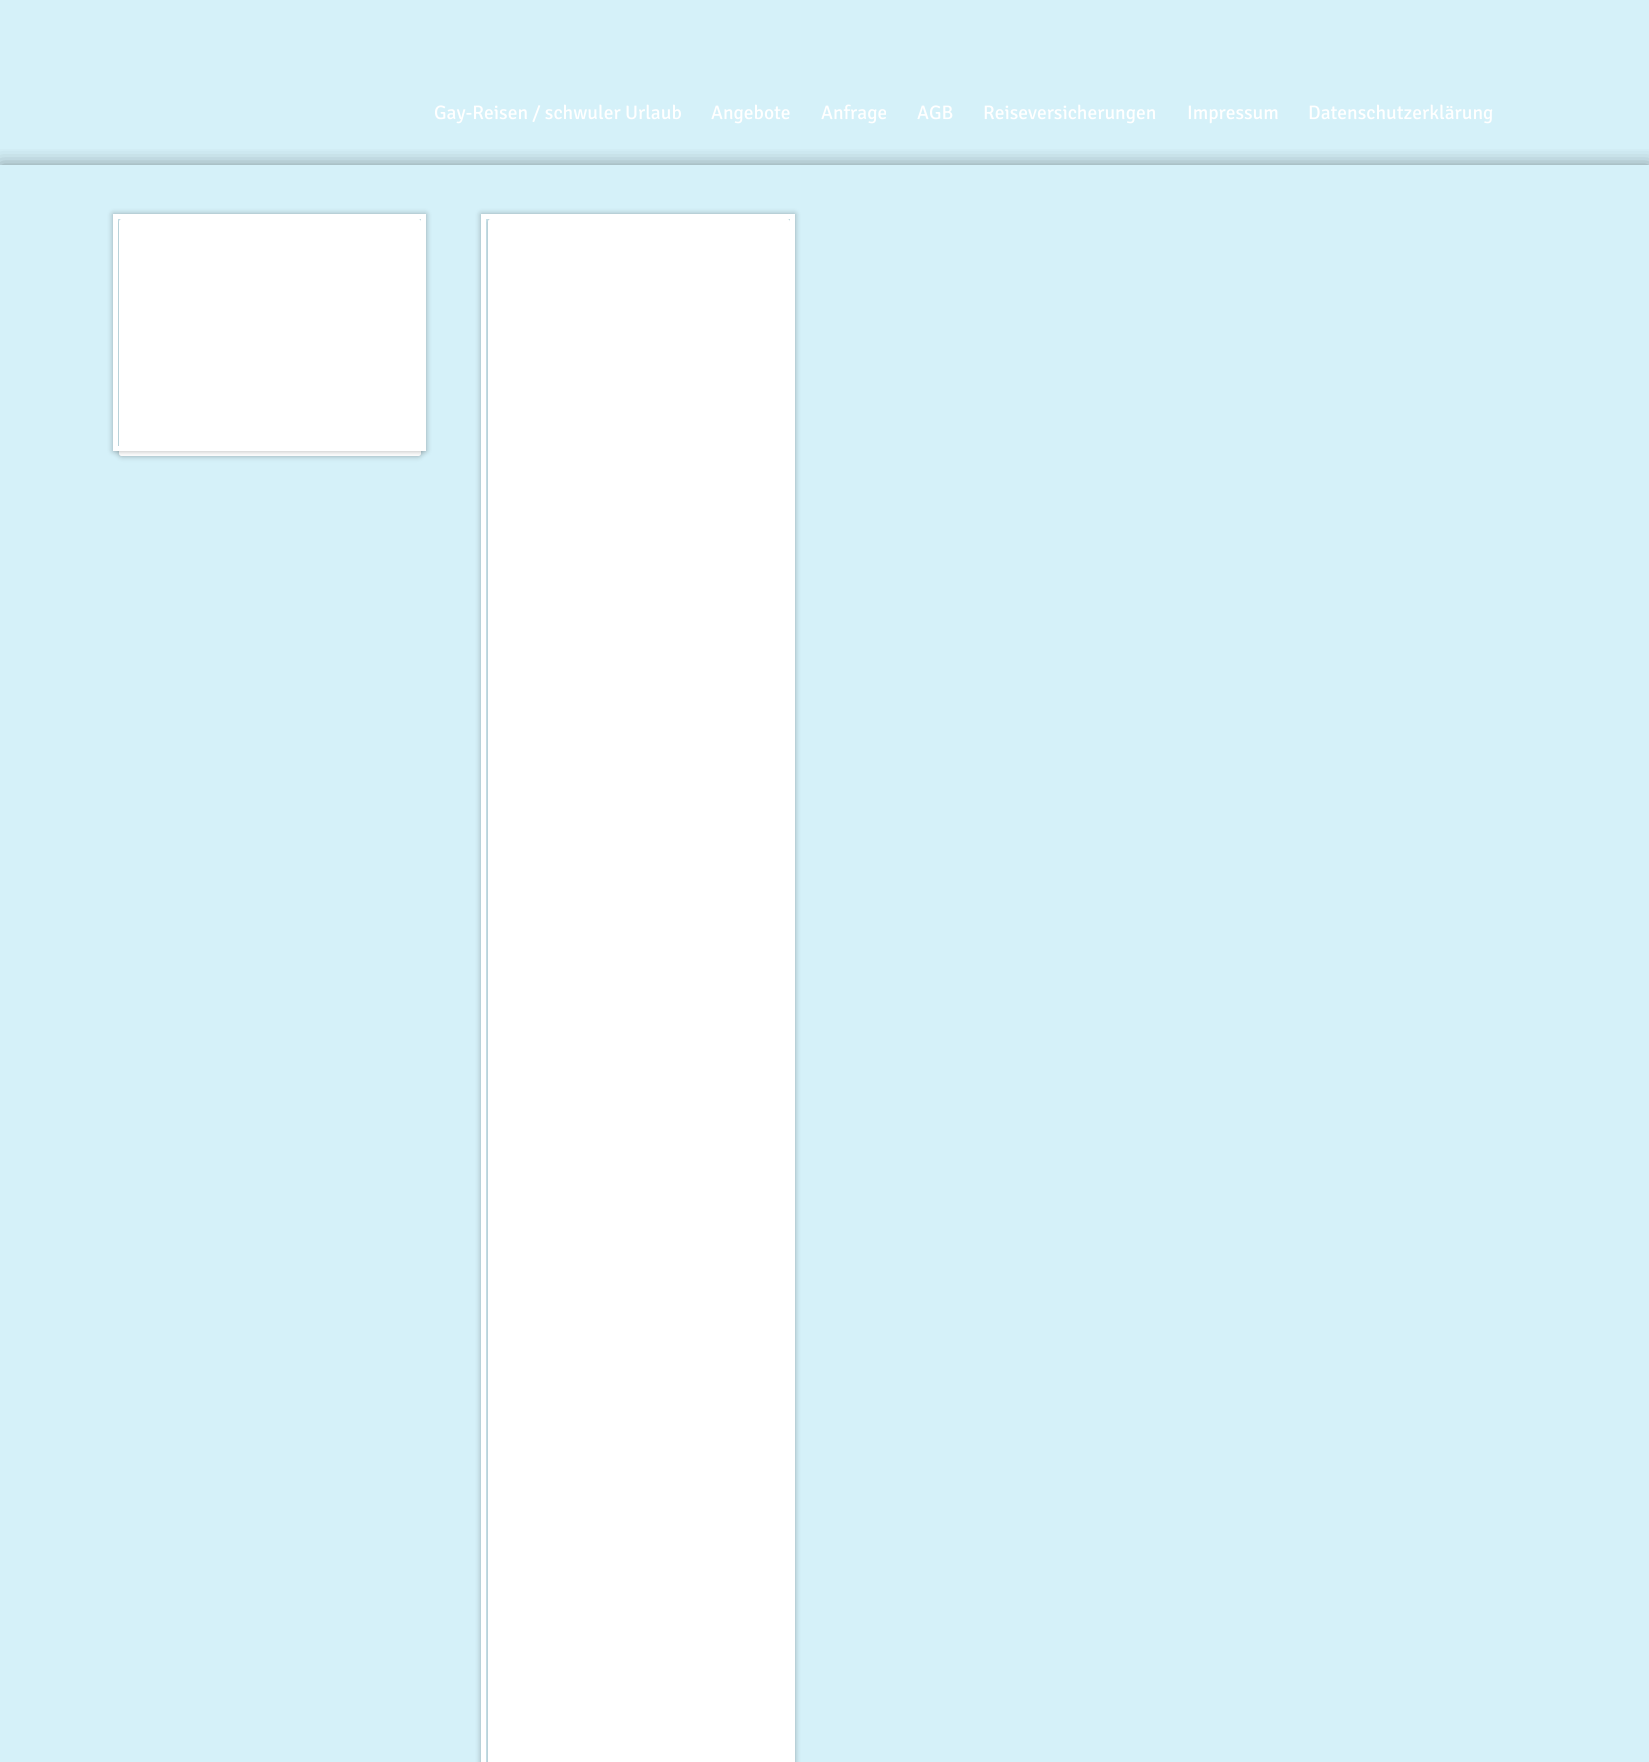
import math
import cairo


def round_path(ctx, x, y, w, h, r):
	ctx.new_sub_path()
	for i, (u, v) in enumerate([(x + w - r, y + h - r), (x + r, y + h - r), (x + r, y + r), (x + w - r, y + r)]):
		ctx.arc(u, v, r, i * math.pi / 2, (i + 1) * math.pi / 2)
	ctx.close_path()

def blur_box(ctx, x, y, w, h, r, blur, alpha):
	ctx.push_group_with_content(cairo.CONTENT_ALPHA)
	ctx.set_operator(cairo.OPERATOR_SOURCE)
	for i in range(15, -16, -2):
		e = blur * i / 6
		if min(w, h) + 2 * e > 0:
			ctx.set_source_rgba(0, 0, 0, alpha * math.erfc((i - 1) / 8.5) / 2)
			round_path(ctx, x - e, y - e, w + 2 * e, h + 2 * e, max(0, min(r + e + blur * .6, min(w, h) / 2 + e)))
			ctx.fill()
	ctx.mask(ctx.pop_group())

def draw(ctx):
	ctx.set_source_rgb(0.835, 0.945, 0.976)
	ctx.paint()
	ctx.select_font_face('Signika')
	ctx.set_font_size(19.5)
	ctx.set_source_rgb(1, 1, 1)
	for x, y, s in [
		(434, 119, 'Gay-Reisen / schwuler Urlaub'),
		(711, 119, 'Angebote'),
		(821, 119, 'Anfrage'),
		(917, 119, 'AGB'),
		(983, 119, 'Reiseversicherungen'),
		(1187, 119, 'Impressum'),
		(1308, 119, 'Datenschutzerklärung'),
	]:
		ctx.move_to(x, y)
		ctx.show_text(s)
	ctx.save()
	ctx.rectangle(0, 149, 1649, 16)
	ctx.clip()
	ctx.set_source_rgb(0, 0, 0)
	blur_box(ctx, 0, 165, 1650, 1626, 0, 9.5, 0.4)
	ctx.restore()
	ctx.set_source_rgb(0, 0, 0)
	blur_box(ctx, 119, 219, 302, 237, 2.5, 3, 0.3)
	ctx.set_source_rgb(1, 1, 1)
	round_path(ctx, 119, 219, 302, 237, 2.5)
	ctx.fill()
	ctx.save()
	ctx.set_fill_rule(cairo.FILL_RULE_EVEN_ODD)
	ctx.new_path()
	ctx.move_to(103, 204)
	ctx.line_to(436, 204)
	ctx.line_to(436, 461)
	ctx.line_to(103, 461)
	ctx.close_path()
	ctx.move_to(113, 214)
	ctx.line_to(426, 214)
	ctx.line_to(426, 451)
	ctx.line_to(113, 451)
	ctx.close_path()
	ctx.clip()
	ctx.set_source_rgb(0, 0, 0)
	blur_box(ctx, 113, 214, 313, 237, 0, 3, 0.3)
	ctx.restore()
	ctx.rectangle(115.5, 216.5, 308, 232)
	ctx.set_line_width(5)
	ctx.stroke()
	ctx.set_source_rgb(0, 0, 0)
	blur_box(ctx, 488, 219, 302, 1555, 2.5, 3, 0.3)
	ctx.set_source_rgb(1, 1, 1)
	round_path(ctx, 488, 219, 302, 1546, 2.5)
	ctx.fill()
	ctx.save()
	ctx.set_fill_rule(cairo.FILL_RULE_EVEN_ODD)
	ctx.new_path()
	ctx.move_to(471, 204)
	ctx.line_to(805, 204)
	ctx.line_to(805, 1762)
	ctx.line_to(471, 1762)
	ctx.close_path()
	ctx.move_to(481, 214)
	ctx.line_to(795, 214)
	ctx.line_to(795, 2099)
	ctx.line_to(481, 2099)
	ctx.close_path()
	ctx.clip()
	ctx.set_source_rgb(0, 0, 0)
	blur_box(ctx, 481, 214, 314, 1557, 0, 3, 0.3)
	ctx.restore()
	ctx.rectangle(483.5, 216.5, 309, 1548)
	ctx.stroke()


surface = cairo.ImageSurface(cairo.FORMAT_RGB24, 1649, 1762)
ctx = cairo.Context(surface)
options = cairo.FontOptions()
options.set_hint_metrics(cairo.HINT_METRICS_OFF)
options.set_hint_style(cairo.HINT_STYLE_NONE)
ctx.set_font_options(options)
ctx.set_miter_limit(4)
draw(ctx)
surface.write_to_png('image.png')
